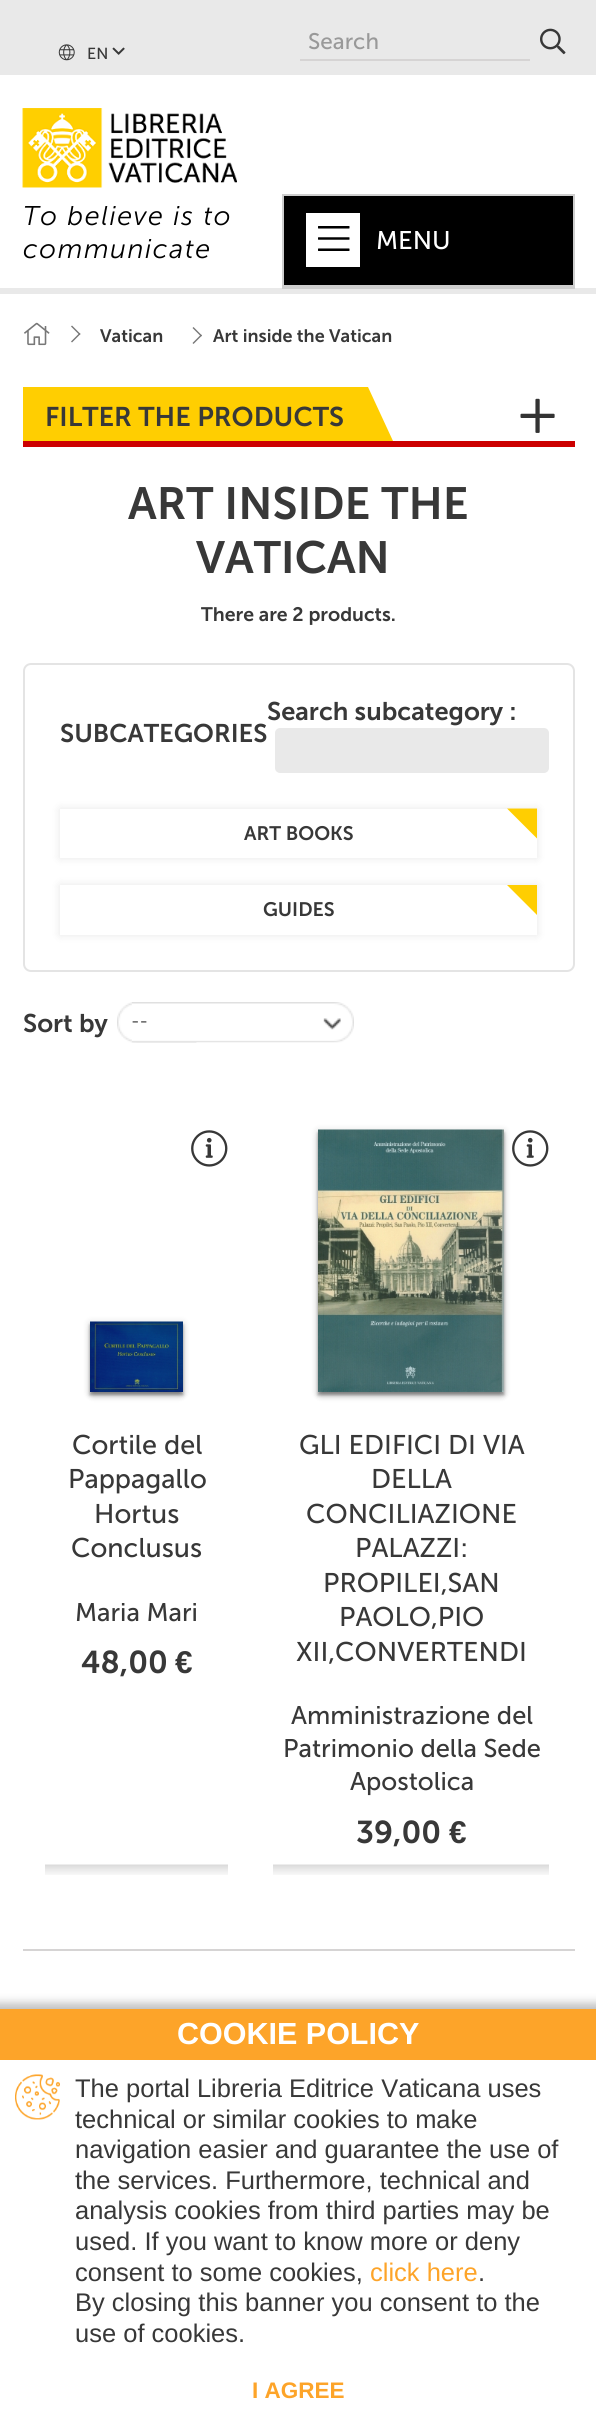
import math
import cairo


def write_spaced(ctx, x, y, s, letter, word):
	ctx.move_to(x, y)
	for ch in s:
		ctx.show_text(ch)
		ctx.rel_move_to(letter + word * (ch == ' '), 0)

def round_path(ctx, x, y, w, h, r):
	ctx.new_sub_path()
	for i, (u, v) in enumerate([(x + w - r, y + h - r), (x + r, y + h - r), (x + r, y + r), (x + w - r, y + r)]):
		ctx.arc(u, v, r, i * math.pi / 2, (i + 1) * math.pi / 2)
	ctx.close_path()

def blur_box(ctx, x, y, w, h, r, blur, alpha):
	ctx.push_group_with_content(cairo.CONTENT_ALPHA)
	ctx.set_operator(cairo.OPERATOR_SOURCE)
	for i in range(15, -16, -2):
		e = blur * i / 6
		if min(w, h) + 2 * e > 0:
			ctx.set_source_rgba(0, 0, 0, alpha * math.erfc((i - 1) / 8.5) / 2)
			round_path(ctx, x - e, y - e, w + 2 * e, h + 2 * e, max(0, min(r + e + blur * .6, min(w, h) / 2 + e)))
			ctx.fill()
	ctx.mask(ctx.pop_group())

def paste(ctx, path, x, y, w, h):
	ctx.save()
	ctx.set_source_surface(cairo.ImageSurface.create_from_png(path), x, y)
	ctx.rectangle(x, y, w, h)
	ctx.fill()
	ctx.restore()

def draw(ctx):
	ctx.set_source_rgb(1, 1, 1)
	ctx.paint()
	ctx.set_source_rgb(0.914, 0.914, 0.914)
	ctx.rectangle(0, 0, 596, 75)
	ctx.fill()
	ctx.set_source_rgb(0.839, 0.831, 0.831)
	ctx.rectangle(300, 59, 230, 2)
	ctx.fill()
	ctx.select_font_face('Museo Sans')
	ctx.set_font_size(22.5)
	ctx.set_source_rgb(0.6, 0.6, 0.6)
	ctx.move_to(308, 49)
	ctx.show_text('Search')
	paste(ctx, 'media/1.png', 540, 28, 26, 27)
	paste(ctx, 'media/2.png', 58, 44, 17, 17)
	ctx.set_font_size(16)
	ctx.set_source_rgb(0.22, 0.22, 0.22)
	ctx.move_to(87, 59)
	ctx.show_text('EN')
	paste(ctx, 'media/3.png', 112, 47, 13, 8)
	ctx.set_source_rgb(0.914, 0.914, 0.914)
	ctx.rectangle(0, 288, 596, 6)
	ctx.fill()
	paste(ctx, 'media/4.png', 22, 108, 215, 80)
	ctx.select_font_face('Museo Sans Light', cairo.FONT_SLANT_ITALIC)
	ctx.set_font_size(27)
	ctx.set_source_rgb(0, 0, 0)
	write_spaced(ctx, 23, 225, 'To believe is to', 1.5, 0)
	write_spaced(ctx, 23, 258, 'communicate', 1.5, 0)
	ctx.rectangle(283, 195, 291, 91)
	ctx.fill_preserve()
	ctx.set_source_rgb(0.808, 0.808, 0.808)
	ctx.stroke()
	ctx.set_source_rgb(1, 1, 1)
	ctx.rectangle(306, 213, 54, 54)
	ctx.fill()
	paste(ctx, 'media/5.png', 318, 226, 32, 25)
	ctx.select_font_face('Museo Sans')
	ctx.set_font_size(25.5)
	ctx.move_to(376, 249)
	ctx.show_text('MENU')
	ctx.set_source_rgb(0.808, 0.808, 0.808)
	ctx.rectangle(282, 287, 293, 2)
	ctx.fill()
	paste(ctx, 'media/6.png', 24, 322, 26, 24)
	ctx.set_source_rgb(0.467, 0.467, 0.467)
	ctx.new_path()
	ctx.move_to(72, 325.5)
	ctx.line_to(80.5, 334)
	ctx.line_to(79.5, 335)
	ctx.line_to(71, 326.5)
	ctx.close_path()
	ctx.fill()
	ctx.new_path()
	ctx.move_to(79.5, 333)
	ctx.line_to(80.5, 334)
	ctx.line_to(72, 342.5)
	ctx.line_to(71, 341.5)
	ctx.close_path()
	ctx.fill()
	ctx.select_font_face('Museo Sans SemiBold')
	ctx.set_font_size(18)
	ctx.set_source_rgb(0.22, 0.22, 0.22)
	ctx.move_to(100, 342)
	ctx.show_text('Vatican')
	ctx.set_source_rgb(0.467, 0.467, 0.467)
	ctx.new_path()
	ctx.move_to(193.5, 327)
	ctx.line_to(202, 335.5)
	ctx.line_to(201, 336.5)
	ctx.line_to(192.5, 328)
	ctx.close_path()
	ctx.fill()
	ctx.new_path()
	ctx.move_to(201, 334.5)
	ctx.line_to(202, 335.5)
	ctx.line_to(193.5, 344)
	ctx.line_to(192.5, 343)
	ctx.close_path()
	ctx.fill()
	ctx.set_source_rgb(0.22, 0.22, 0.22)
	ctx.move_to(213, 342)
	ctx.show_text('Art inside the Vatican')
	ctx.set_source_rgb(0.8, 0, 0)
	ctx.rectangle(23, 441, 552, 6)
	ctx.fill()
	ctx.set_source_rgb(1, 0.808, 0.004)
	ctx.rectangle(23, 387, 343, 54)
	ctx.fill()
	ctx.set_font_size(27)
	ctx.set_source_rgb(0.22, 0.22, 0.22)
	ctx.move_to(45, 426)
	ctx.show_text('FILTER THE PRODUCTS')
	ctx.set_source_rgb(1, 0.808, 0.004)
	ctx.new_path()
	ctx.move_to(393, 441)
	ctx.line_to(340, 441)
	ctx.line_to(366, 387)
	ctx.line_to(368, 387)
	ctx.close_path()
	ctx.fill()
	paste(ctx, 'media/7.png', 520, 398, 35, 35)
	ctx.set_font_size(45)
	ctx.set_source_rgb(0.22, 0.22, 0.22)
	ctx.move_to(128, 519)
	ctx.show_text('ART INSIDE THE')
	ctx.move_to(196, 573)
	ctx.show_text('VATICAN')
	ctx.set_font_size(19.5)
	ctx.move_to(201, 621)
	ctx.show_text('There are 2 products.')
	round_path(ctx, 24, 664, 550, 307, 7)
	ctx.set_source_rgb(0.894, 0.894, 0.894)
	ctx.stroke()
	ctx.set_font_size(25.5)
	ctx.set_source_rgb(0.22, 0.22, 0.22)
	ctx.move_to(267, 720)
	ctx.show_text('Search subcategory :')
	ctx.set_source_rgb(0.914, 0.914, 0.914)
	round_path(ctx, 276, 729, 272, 43, 4)
	ctx.fill_preserve()
	ctx.stroke()
	ctx.set_source_rgb(0.22, 0.22, 0.22)
	ctx.move_to(60, 742)
	ctx.show_text('SUBCATEGORIES')
	ctx.save()
	ctx.set_fill_rule(cairo.FILL_RULE_EVEN_ODD)
	ctx.new_path()
	ctx.move_to(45, 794)
	ctx.line_to(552, 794)
	ctx.line_to(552, 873)
	ctx.line_to(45, 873)
	ctx.close_path()
	ctx.move_to(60, 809)
	ctx.line_to(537, 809)
	ctx.line_to(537, 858)
	ctx.line_to(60, 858)
	ctx.close_path()
	ctx.clip()
	ctx.set_source_rgb(0, 0, 0)
	blur_box(ctx, 60, 809, 477, 49, 0, 4.5, 0.1)
	ctx.restore()
	ctx.set_font_size(19.5)
	ctx.move_to(244, 840)
	ctx.show_text('ART BOOKS')
	ctx.set_source_rgb(1, 0.808, 0.004)
	ctx.new_path()
	ctx.move_to(507, 808.5)
	ctx.line_to(537, 808.5)
	ctx.line_to(537, 838.5)
	ctx.close_path()
	ctx.fill()
	ctx.set_source_rgb(0, 0, 0)
	blur_box(ctx, 60, 885, 477, 50, 0, 4.5, 0.1)
	ctx.set_source_rgb(1, 1, 1)
	ctx.rectangle(60, 885, 477, 50)
	ctx.fill()
	ctx.set_source_rgb(0.22, 0.22, 0.22)
	ctx.move_to(263, 916)
	ctx.show_text('GUIDES')
	ctx.set_source_rgb(1, 0.808, 0.004)
	ctx.new_path()
	ctx.move_to(507, 885)
	ctx.line_to(537, 885)
	ctx.line_to(537, 915)
	ctx.close_path()
	ctx.fill()
	ctx.set_font_size(25.5)
	ctx.set_source_rgb(0.22, 0.22, 0.22)
	ctx.move_to(23, 1032)
	ctx.show_text('Sort by')
	paste(ctx, 'media/8.png', 117, 1002, 80, 41)
	paste(ctx, 'media/9.png', 132, 1002, 222, 41)
	ctx.select_font_face('Museo Sans')
	ctx.set_font_size(18)
	ctx.set_source_rgb(0.4, 0.4, 0.4)
	ctx.move_to(131, 1027)
	ctx.show_text('--')
	ctx.set_source_rgb(0, 0, 0)
	blur_box(ctx, 93, 1329, 87, 65, 0, 4, 0.33)
	blur_box(ctx, 90, 1323, 93, 71, 0, 4, 0.15)
	blur_box(ctx, 90, 1325, 93, 70, 0, 1.5, 0.29)
	paste(ctx, 'media/10.png', 90, 1321, 93, 71)
	paste(ctx, 'media/11.png', 191, 1130, 37, 37)
	ctx.set_font_size(27)
	ctx.set_source_rgb(0.22, 0.22, 0.22)
	for x, y, s in [
		(72, 1454, 'Cortile del'),
		(68, 1488, 'Pappagallo'),
		(94, 1523, 'Hortus'),
		(71, 1557, 'Conclusus'),
	]:
		ctx.move_to(x, y)
		ctx.show_text(s)
	ctx.set_font_size(25.5)
	ctx.move_to(75, 1621)
	ctx.show_text('Maria Mari')
	ctx.select_font_face('Museo Sans SemiBold')
	ctx.set_font_size(31.5)
	ctx.move_to(81, 1673)
	ctx.show_text('48,00')
	ctx.select_font_face('Liberation Sans', cairo.FONT_SLANT_NORMAL, cairo.FONT_WEIGHT_BOLD)
	ctx.move_to(175, 1673)
	ctx.show_text('€')
	paste(ctx, 'media/12.png', 45, 1864, 183, 11)
	ctx.set_source_rgb(0, 0, 0)
	blur_box(ctx, 321, 1137, 180, 257, 0, 4, 0.33)
	blur_box(ctx, 318, 1131, 186, 263, 0, 4, 0.15)
	blur_box(ctx, 318, 1133, 186, 262, 0, 1.5, 0.29)
	paste(ctx, 'media/13.png', 318, 1129, 186, 263)
	paste(ctx, 'media/14.png', 512, 1130, 37, 37)
	ctx.select_font_face('Museo Sans')
	ctx.set_font_size(27)
	ctx.set_source_rgb(0.22, 0.22, 0.22)
	for x, y, s in [
		(299, 1454, 'GLI EDIFICI DI VIA'),
		(371, 1488, 'DELLA'),
		(306, 1523, 'CONCILIAZIONE'),
		(355, 1557, 'PALAZZI:'),
		(323, 1592, 'PROPILEI,SAN'),
		(339, 1626, 'PAOLO,PIO'),
		(296, 1661, 'XII,CONVERTENDI'),
	]:
		ctx.move_to(x, y)
		ctx.show_text(s)
	ctx.set_font_size(25.5)
	for x, y, s in [
		(291, 1724, 'Amministrazione del'),
		(283, 1757, 'Patrimonio della Sede'),
		(350, 1790, 'Apostolica'),
	]:
		ctx.move_to(x, y)
		ctx.show_text(s)
	ctx.select_font_face('Museo Sans SemiBold')
	ctx.set_font_size(31.5)
	ctx.move_to(356, 1843)
	ctx.show_text('39,00')
	ctx.select_font_face('Liberation Sans', cairo.FONT_SLANT_NORMAL, cairo.FONT_WEIGHT_BOLD)
	ctx.move_to(449, 1843)
	ctx.show_text('€')
	paste(ctx, 'media/15.png', 273, 1864, 276, 11)
	ctx.set_source_rgb(0.839, 0.831, 0.831)
	ctx.rectangle(23, 1949, 552, 2)
	ctx.fill()
	ctx.set_source_rgb(0, 0, 0)
	blur_box(ctx, -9, 2003, 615, 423, 0, 4.5, 0.25)
	ctx.set_source_rgb(1, 1, 1)
	ctx.rectangle(0, 2060, 596, 353)
	ctx.fill()
	ctx.set_source_rgb(0.992, 0.643, 0.161)
	ctx.rectangle(0, 2009, 596, 51)
	ctx.fill()
	ctx.set_font_size(30.5)
	ctx.set_source_rgb(1, 1, 1)
	ctx.move_to(177, 2044)
	ctx.show_text('COOKIE POLICY')
	paste(ctx, 'media/16.png', 15, 2074, 45, 46)
	ctx.select_font_face('Liberation Sans')
	ctx.set_font_size(25.5)
	ctx.set_source_rgb(0.22, 0.22, 0.22)
	for x, y, s in [
		(75, 2097, 'The portal Libreria Editrice Vaticana uses'),
		(75, 2128, 'technical or similar cookies to make'),
		(75, 2158, 'navigation easier and guarantee the use of'),
		(75, 2189, 'the services. Furthermore, technical and'),
		(75, 2219, 'analysis cookies from third parties may be'),
		(75, 2250, 'used. If you want to know more or deny'),
		(75, 2281, 'consent to some cookies,'),
	]:
		ctx.move_to(x, y)
		ctx.show_text(s)
	ctx.set_source_rgb(0.992, 0.643, 0.161)
	ctx.move_to(370, 2281)
	ctx.show_text('click here')
	ctx.set_source_rgb(0.22, 0.22, 0.22)
	for x, y, s in [
		(478, 2281, '.'),
		(75, 2311, 'By closing this banner you consent to the'),
		(75, 2342, 'use of cookies.'),
	]:
		ctx.move_to(x, y)
		ctx.show_text(s)
	ctx.select_font_face('Liberation Sans', cairo.FONT_SLANT_NORMAL, cairo.FONT_WEIGHT_BOLD)
	ctx.set_font_size(22.5)
	ctx.set_source_rgb(0.992, 0.643, 0.161)
	ctx.move_to(252, 2398)
	ctx.show_text('I AGREE')


surface = cairo.ImageSurface(cairo.FORMAT_RGB24, 596, 2413)
ctx = cairo.Context(surface)
options = cairo.FontOptions()
options.set_hint_metrics(cairo.HINT_METRICS_OFF)
options.set_hint_style(cairo.HINT_STYLE_NONE)
ctx.set_font_options(options)
ctx.set_miter_limit(4)
draw(ctx)
surface.write_to_png('image.png')
